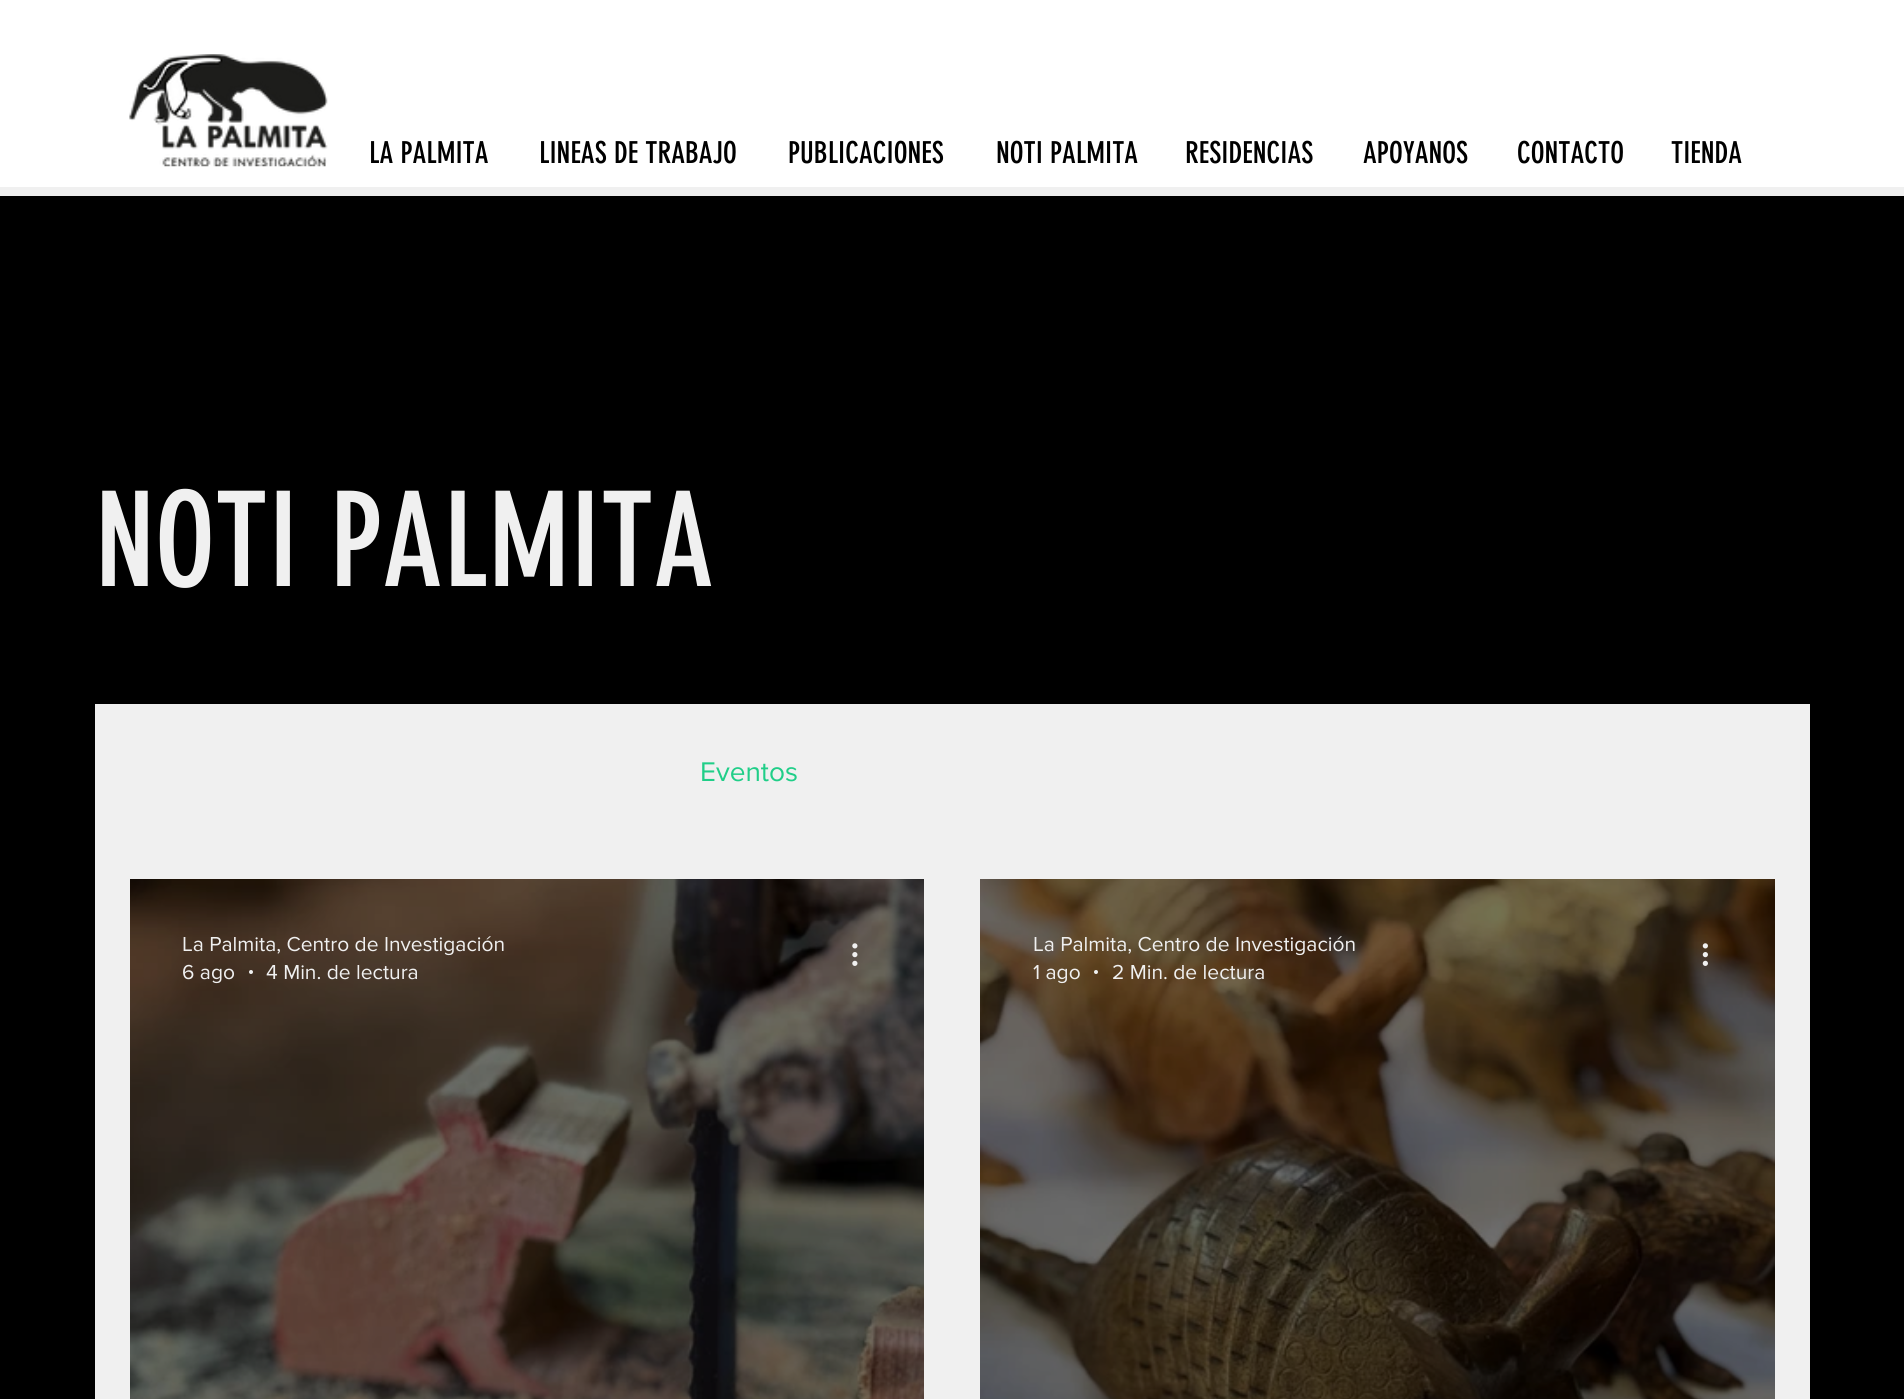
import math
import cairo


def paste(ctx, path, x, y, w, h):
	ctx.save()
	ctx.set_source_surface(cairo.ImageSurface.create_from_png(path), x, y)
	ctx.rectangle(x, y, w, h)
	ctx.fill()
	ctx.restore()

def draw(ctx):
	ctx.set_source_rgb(0, 0, 0)
	ctx.paint()
	ctx.set_source_rgb(1, 1, 1)
	ctx.rectangle(0, 0, 1904, 187)
	ctx.fill()
	ctx.set_source_rgb(0.941, 0.941, 0.941)
	ctx.rectangle(0, 187, 1904, 9)
	ctx.fill()
	paste(ctx, 'media/1.png', 129, 54, 199, 113)
	ctx.select_font_face('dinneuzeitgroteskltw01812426')
	ctx.set_font_size(29.75)
	ctx.set_source_rgb(0, 0, 0)
	for x, y, s in [
		(369, 163, 'LA PALMITA'),
		(539, 163, 'LINEAS DE TRABAJO'),
		(788, 163, 'PUBLICACIONES'),
		(996, 163, 'NOTI PALMITA'),
		(1185, 163, 'RESIDENCIAS'),
		(1363, 163, 'APOYANOS'),
		(1517, 163, 'CONTACTO'),
		(1671, 163, 'TIENDA'),
	]:
		ctx.move_to(x, y)
		ctx.show_text(s)
	ctx.set_font_size(129.5)
	ctx.set_source_rgb(0.941, 0.941, 0.941)
	ctx.move_to(95, 586)
	ctx.show_text('NOTI PALMITA')
	ctx.rectangle(95, 704, 1715, 695)
	ctx.fill()
	ctx.select_font_face('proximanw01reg')
	ctx.set_font_size(28)
	ctx.set_source_rgb(0.125, 0.808, 0.533)
	ctx.move_to(700, 781)
	ctx.show_text('Eventos')
	paste(ctx, 'media/2.png', 130, 879, 794, 520)
	ctx.set_font_size(21)
	ctx.set_source_rgb(0.941, 0.941, 0.941)
	ctx.move_to(182, 951)
	ctx.show_text('La Palmita, Centro de Investigación')
	ctx.move_to(182, 979)
	ctx.show_text('6 ago')
	ctx.new_path()
	ctx.arc(251, 972, 2, 0, 2 * math.pi)
	ctx.fill()
	ctx.move_to(266, 979)
	ctx.show_text('4 Min. de lectura')
	paste(ctx, 'media/3.png', 852, 943, 6, 23)
	paste(ctx, 'media/4.png', 980, 879, 795, 520)
	ctx.move_to(1033, 951)
	ctx.show_text('La Palmita, Centro de Investigación')
	ctx.move_to(1033, 979)
	ctx.show_text('1 ago')
	ctx.new_path()
	ctx.arc(1096, 972, 2, 0, 2 * math.pi)
	ctx.fill()
	ctx.move_to(1112, 979)
	ctx.show_text('2 Min. de lectura')
	paste(ctx, 'media/5.png', 1702, 943, 6, 23)


surface = cairo.ImageSurface(cairo.FORMAT_RGB24, 1904, 1399)
ctx = cairo.Context(surface)
options = cairo.FontOptions()
options.set_hint_metrics(cairo.HINT_METRICS_OFF)
options.set_hint_style(cairo.HINT_STYLE_NONE)
ctx.set_font_options(options)
ctx.set_miter_limit(4)
draw(ctx)
surface.write_to_png('image.png')
